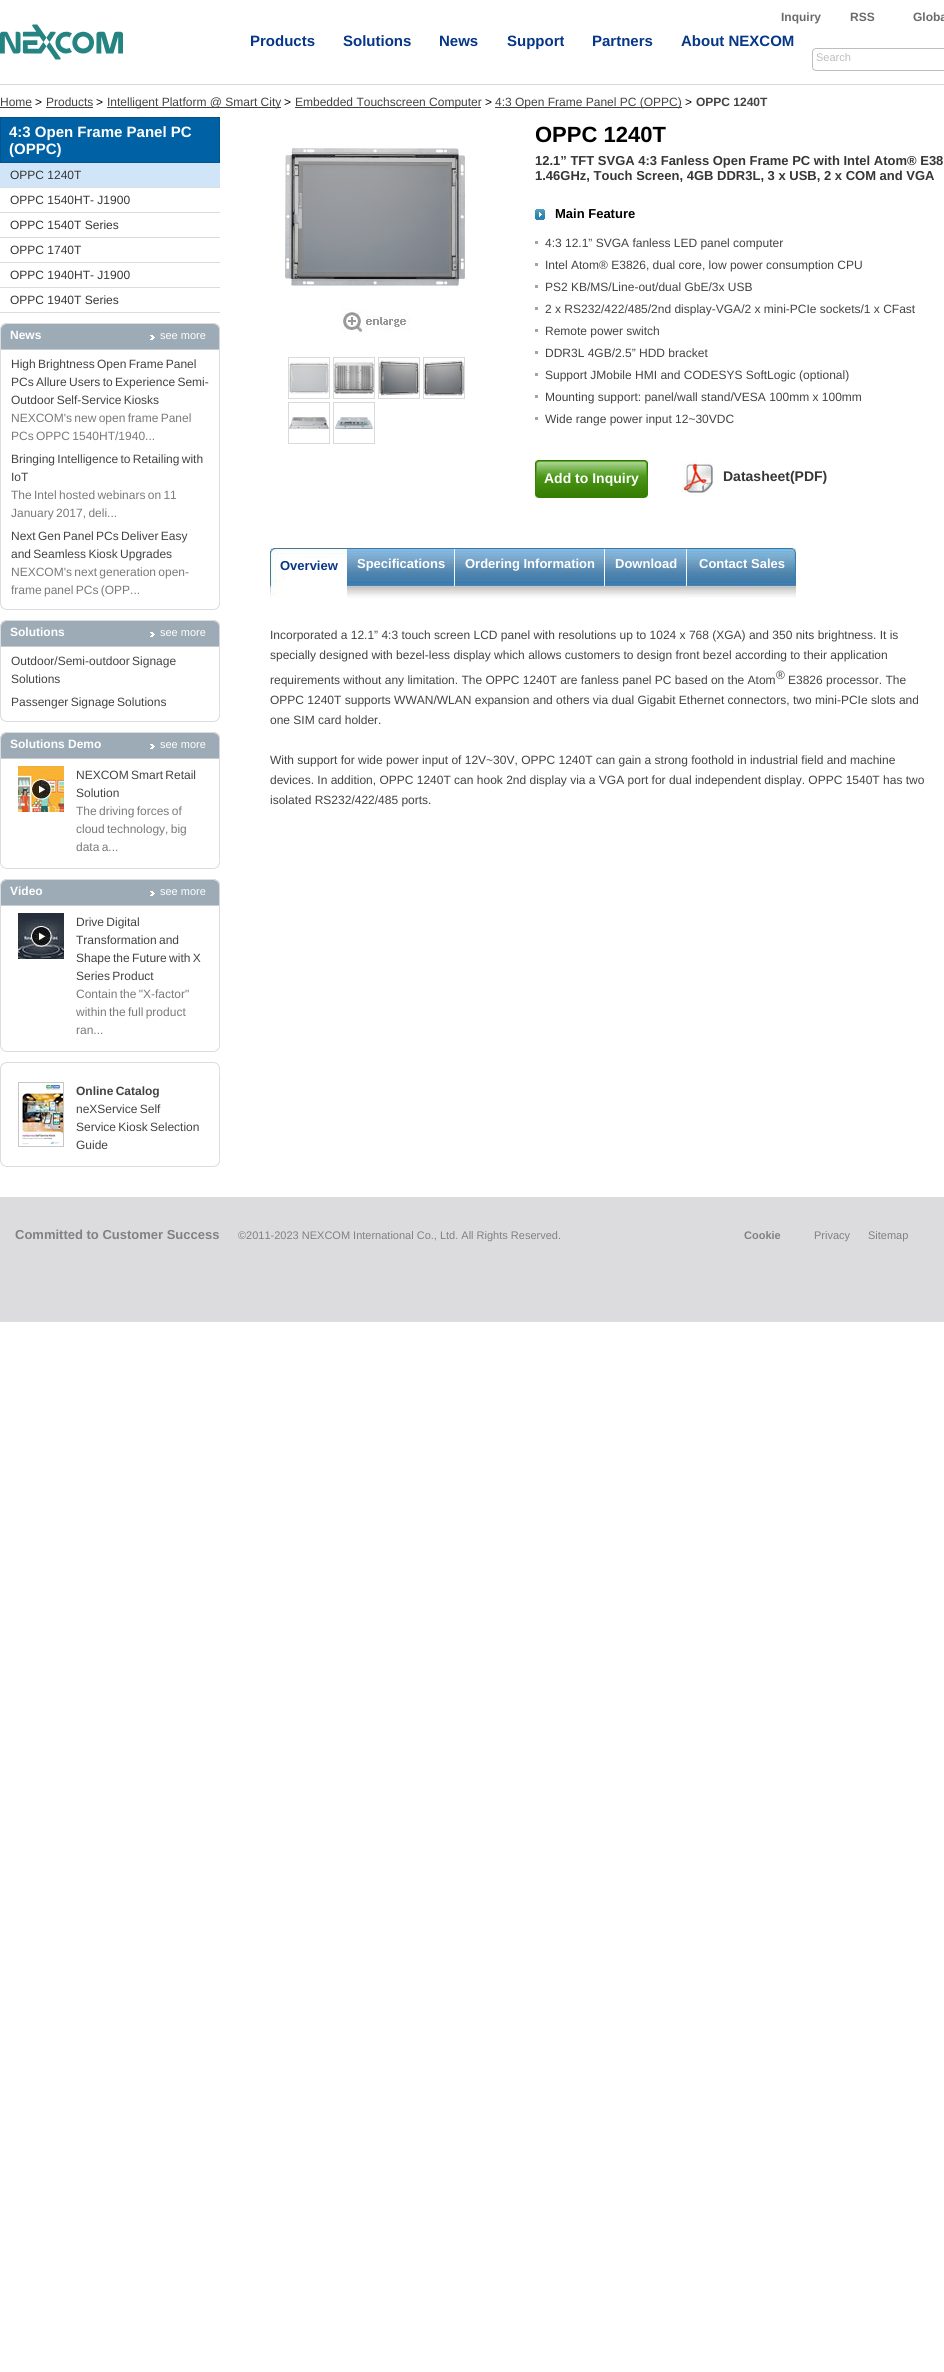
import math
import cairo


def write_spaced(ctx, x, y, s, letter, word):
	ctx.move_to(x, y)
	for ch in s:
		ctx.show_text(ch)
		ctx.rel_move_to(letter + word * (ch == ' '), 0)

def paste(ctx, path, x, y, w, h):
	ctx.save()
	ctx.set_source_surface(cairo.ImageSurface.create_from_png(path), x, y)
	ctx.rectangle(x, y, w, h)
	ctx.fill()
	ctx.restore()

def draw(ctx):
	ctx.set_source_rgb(1, 1, 1)
	ctx.paint()
	ctx.select_font_face('Liberation Sans', cairo.FONT_SLANT_NORMAL, cairo.FONT_WEIGHT_BOLD)
	ctx.set_font_size(12)
	ctx.set_source_rgb(0.42, 0.42, 0.42)
	for x, y, s in [
		(781, 21, 'Inquiry'),
		(850, 21, 'RSS'),
		(913, 21, 'Globa'),
	]:
		ctx.move_to(x, y)
		ctx.show_text(s)
	paste(ctx, 'media/1.png', 0, 24, 123, 36)
	ctx.set_font_size(15)
	ctx.set_source_rgb(0.027, 0.212, 0.529)
	for x, y, s in [
		(250, 46, 'Products'),
		(343, 46, 'Solutions'),
		(439, 46, 'News'),
		(507, 46, 'Support'),
		(592, 46, 'Partners'),
		(681, 46, 'About NEXCOM'),
	]:
		ctx.move_to(x, y)
		ctx.show_text(s)
	paste(ctx, 'media/2.png', 812, 48, 132, 23)
	ctx.select_font_face('Liberation Sans')
	ctx.set_font_size(11)
	ctx.set_source_rgb(0.745, 0.745, 0.745)
	ctx.move_to(816, 61)
	ctx.show_text('Search')
	ctx.set_source_rgb(0.855, 0.855, 0.855)
	ctx.rectangle(0, 84, 944, 1)
	ctx.fill()
	ctx.set_font_size(12)
	ctx.set_source_rgb(0.263, 0.263, 0.263)
	ctx.move_to(0, 106)
	ctx.show_text('Home')
	ctx.rectangle(0, 107, 32, 1)
	ctx.fill()
	ctx.set_source_rgb(0, 0, 0)
	ctx.move_to(35, 106)
	ctx.show_text('>')
	ctx.set_source_rgb(0.263, 0.263, 0.263)
	ctx.move_to(46, 106)
	ctx.show_text('Products')
	ctx.rectangle(46, 107, 47, 1)
	ctx.fill()
	ctx.set_source_rgb(0, 0, 0)
	ctx.move_to(96, 106)
	ctx.show_text('>')
	ctx.set_source_rgb(0.263, 0.263, 0.263)
	ctx.rectangle(107, 107, 174, 1)
	ctx.fill()
	ctx.move_to(107, 106)
	ctx.show_text('Intelligent Platform @ Smart City')
	ctx.set_source_rgb(0, 0, 0)
	ctx.move_to(284, 106)
	ctx.show_text('>')
	ctx.set_source_rgb(0.263, 0.263, 0.263)
	ctx.rectangle(295, 107, 186, 1)
	ctx.fill()
	ctx.move_to(295, 106)
	ctx.show_text('Embedded Touchscreen Computer')
	ctx.set_source_rgb(0, 0, 0)
	ctx.move_to(485, 106)
	ctx.show_text('>')
	ctx.set_source_rgb(0.263, 0.263, 0.263)
	ctx.rectangle(495, 107, 187, 1)
	ctx.fill()
	ctx.move_to(495, 106)
	ctx.show_text('4:3 Open Frame Panel PC (OPPC)')
	ctx.set_source_rgb(0, 0, 0)
	ctx.move_to(685, 106)
	ctx.show_text('>')
	ctx.select_font_face('Liberation Sans', cairo.FONT_SLANT_NORMAL, cairo.FONT_WEIGHT_BOLD)
	ctx.set_source_rgb(0.263, 0.263, 0.263)
	ctx.move_to(696, 106)
	ctx.show_text('OPPC 1240T')
	ctx.set_source_rgb(0, 0.384, 0.643)
	ctx.rectangle(0.5, 117.5, 219, 45)
	ctx.fill_preserve()
	ctx.set_source_rgb(0.004, 0.333, 0.549)
	ctx.set_line_width(1)
	ctx.stroke()
	ctx.set_font_size(15)
	ctx.set_source_rgb(1, 1, 1)
	ctx.move_to(9, 137)
	ctx.show_text('4:3 Open Frame Panel PC')
	ctx.move_to(9, 154)
	ctx.show_text('(OPPC)')
	ctx.set_source_rgb(0.816, 0.902, 0.969)
	ctx.rectangle(0, 163, 220, 24)
	ctx.fill()
	ctx.set_source_rgb(0.863, 0.863, 0.875)
	ctx.rectangle(0, 187, 220, 1)
	ctx.fill()
	ctx.select_font_face('Liberation Sans')
	ctx.set_font_size(12)
	ctx.set_source_rgb(0.212, 0.212, 0.212)
	ctx.move_to(10, 179)
	ctx.show_text('OPPC 1240T')
	ctx.set_source_rgb(0.863, 0.863, 0.875)
	ctx.rectangle(0, 212, 220, 1)
	ctx.fill()
	ctx.set_source_rgb(0.212, 0.212, 0.212)
	ctx.move_to(10, 204)
	ctx.show_text('OPPC 1540HT- J1900')
	ctx.set_source_rgb(0.863, 0.863, 0.875)
	ctx.rectangle(0, 237, 220, 1)
	ctx.fill()
	ctx.set_source_rgb(0.212, 0.212, 0.212)
	ctx.move_to(10, 229)
	ctx.show_text('OPPC 1540T Series')
	ctx.set_source_rgb(0.863, 0.863, 0.875)
	ctx.rectangle(0, 262, 220, 1)
	ctx.fill()
	ctx.set_source_rgb(0.212, 0.212, 0.212)
	ctx.move_to(10, 254)
	ctx.show_text('OPPC 1740T')
	ctx.set_source_rgb(0.863, 0.863, 0.875)
	ctx.rectangle(0, 287, 220, 1)
	ctx.fill()
	ctx.set_source_rgb(0.212, 0.212, 0.212)
	ctx.move_to(10, 279)
	ctx.show_text('OPPC 1940HT- J1900')
	ctx.set_source_rgb(0.863, 0.863, 0.875)
	ctx.rectangle(0, 312, 220, 1)
	ctx.fill()
	ctx.set_source_rgb(0.212, 0.212, 0.212)
	ctx.move_to(10, 304)
	ctx.show_text('OPPC 1940T Series')
	paste(ctx, 'media/3.png', 0, 323, 220, 27)
	ctx.select_font_face('Liberation Sans', cairo.FONT_SLANT_NORMAL, cairo.FONT_WEIGHT_BOLD)
	ctx.set_source_rgb(1, 1, 1)
	ctx.move_to(10, 339)
	ctx.show_text('News')
	paste(ctx, 'media/4.png', 150, 335, 5, 5)
	ctx.select_font_face('Liberation Sans')
	ctx.set_font_size(11)
	ctx.move_to(160, 339)
	ctx.show_text('see more')
	ctx.set_source_rgb(0.863, 0.863, 0.875)
	ctx.rectangle(219, 350, 1, 249)
	ctx.fill()
	ctx.rectangle(0, 350, 1, 249)
	ctx.fill()
	ctx.set_font_size(12)
	ctx.set_source_rgb(0.263, 0.263, 0.263)
	for x, y, s in [
		(11, 368, 'High Brightness Open Frame Panel'),
		(11, 386, 'PCs Allure Users to Experience Semi-'),
		(11, 404, 'Outdoor Self-Service Kiosks'),
	]:
		write_spaced(ctx, x, y, s, 0, -1)
	ctx.set_source_rgb(0.478, 0.478, 0.478)
	write_spaced(ctx, 11, 422, 'NEXCOM\'s new open frame Panel', 0, -1)
	write_spaced(ctx, 11, 440, 'PCs OPPC 1540HT/1940...', 0, -1)
	ctx.set_source_rgb(0.263, 0.263, 0.263)
	write_spaced(ctx, 11, 463, 'Bringing Intelligence to Retailing with', 0, -1)
	ctx.move_to(11, 481)
	ctx.show_text('IoT')
	ctx.set_source_rgb(0.478, 0.478, 0.478)
	write_spaced(ctx, 11, 499, 'The Intel hosted webinars on 11', 0, -1)
	write_spaced(ctx, 11, 517, 'January 2017, deli...', 0, -1)
	ctx.set_source_rgb(0.263, 0.263, 0.263)
	write_spaced(ctx, 11, 540, 'Next Gen Panel PCs Deliver Easy', 0, -1)
	write_spaced(ctx, 11, 558, 'and Seamless Kiosk Upgrades', 0, -1)
	ctx.set_source_rgb(0.478, 0.478, 0.478)
	write_spaced(ctx, 11, 576, 'NEXCOM\'s next generation open-', 0, -1)
	write_spaced(ctx, 11, 594, 'frame panel PCs (OPP...', 0, -1)
	paste(ctx, 'media/5.png', 0, 599, 220, 11)
	paste(ctx, 'media/3.png', 0, 620, 220, 27)
	ctx.select_font_face('Liberation Sans', cairo.FONT_SLANT_NORMAL, cairo.FONT_WEIGHT_BOLD)
	ctx.set_source_rgb(1, 1, 1)
	ctx.move_to(10, 636)
	ctx.show_text('Solutions')
	paste(ctx, 'media/4.png', 150, 632, 5, 5)
	ctx.select_font_face('Liberation Sans')
	ctx.set_font_size(11)
	ctx.move_to(160, 636)
	ctx.show_text('see more')
	ctx.set_source_rgb(0.863, 0.863, 0.875)
	ctx.rectangle(219, 647, 1, 64)
	ctx.fill()
	ctx.rectangle(0, 647, 1, 64)
	ctx.fill()
	ctx.set_font_size(12)
	ctx.set_source_rgb(0.263, 0.263, 0.263)
	write_spaced(ctx, 11, 665, 'Outdoor/Semi-outdoor Signage', 0, -1)
	ctx.move_to(11, 683)
	ctx.show_text('Solutions')
	write_spaced(ctx, 11, 706, 'Passenger Signage Solutions', 0, -1)
	paste(ctx, 'media/5.png', 0, 711, 220, 11)
	paste(ctx, 'media/3.png', 0, 732, 220, 27)
	ctx.select_font_face('Liberation Sans', cairo.FONT_SLANT_NORMAL, cairo.FONT_WEIGHT_BOLD)
	ctx.set_source_rgb(1, 1, 1)
	ctx.move_to(10, 748)
	ctx.show_text('Solutions Demo')
	paste(ctx, 'media/4.png', 150, 744, 5, 5)
	ctx.select_font_face('Liberation Sans')
	ctx.set_font_size(11)
	ctx.move_to(160, 748)
	ctx.show_text('see more')
	ctx.set_source_rgb(0.863, 0.863, 0.875)
	ctx.rectangle(219, 759, 1, 99)
	ctx.fill()
	ctx.rectangle(0, 759, 1, 99)
	ctx.fill()
	paste(ctx, 'media/6.png', 18, 766, 46, 46)
	ctx.set_font_size(12)
	ctx.set_source_rgb(0.263, 0.263, 0.263)
	write_spaced(ctx, 76, 779, 'NEXCOM Smart Retail', 0, -1)
	ctx.move_to(76, 797)
	ctx.show_text('Solution')
	ctx.set_source_rgb(0.478, 0.478, 0.478)
	for x, y, s in [
		(76, 815, 'The driving forces of'),
		(76, 833, 'cloud technology, big'),
		(76, 851, 'data a...'),
	]:
		write_spaced(ctx, x, y, s, 0, -1)
	paste(ctx, 'media/5.png', 0, 858, 220, 11)
	paste(ctx, 'media/3.png', 0, 879, 220, 27)
	ctx.select_font_face('Liberation Sans', cairo.FONT_SLANT_NORMAL, cairo.FONT_WEIGHT_BOLD)
	ctx.set_source_rgb(1, 1, 1)
	ctx.move_to(10, 895)
	ctx.show_text('Video')
	paste(ctx, 'media/4.png', 150, 891, 5, 5)
	ctx.select_font_face('Liberation Sans')
	ctx.set_font_size(11)
	ctx.move_to(160, 895)
	ctx.show_text('see more')
	ctx.set_source_rgb(0.863, 0.863, 0.875)
	ctx.rectangle(219, 906, 1, 135)
	ctx.fill()
	ctx.rectangle(0, 906, 1, 135)
	ctx.fill()
	paste(ctx, 'media/7.png', 18, 913, 46, 46)
	ctx.set_font_size(12)
	ctx.set_source_rgb(0.263, 0.263, 0.263)
	for x, y, s in [
		(76, 926, 'Drive Digital'),
		(76, 944, 'Transformation and'),
		(76, 962, 'Shape the Future with X'),
		(76, 980, 'Series Product'),
	]:
		write_spaced(ctx, x, y, s, 0, -1)
	ctx.set_source_rgb(0.478, 0.478, 0.478)
	write_spaced(ctx, 76, 998, 'Contain the "X-factor"', 0, -1)
	write_spaced(ctx, 76, 1016, 'within the full product', 0, -1)
	ctx.move_to(76, 1034)
	ctx.show_text('ran...')
	paste(ctx, 'media/5.png', 0, 1041, 220, 11)
	paste(ctx, 'media/8.png', 0, 1062, 220, 13)
	ctx.set_source_rgb(0.863, 0.863, 0.875)
	ctx.rectangle(219, 1075, 1, 81)
	ctx.fill()
	ctx.rectangle(0, 1075, 1, 81)
	ctx.fill()
	paste(ctx, 'media/9.png', 18, 1082, 46, 65)
	ctx.select_font_face('Liberation Sans', cairo.FONT_SLANT_NORMAL, cairo.FONT_WEIGHT_BOLD)
	ctx.set_source_rgb(0.263, 0.263, 0.263)
	write_spaced(ctx, 76, 1095, 'Online Catalog', 0, -1)
	ctx.select_font_face('Liberation Sans')
	write_spaced(ctx, 76, 1113, 'neXService Self', 0, -1)
	write_spaced(ctx, 76, 1131, 'Service Kiosk Selection', 0, -1)
	ctx.move_to(76, 1149)
	ctx.show_text('Guide')
	paste(ctx, 'media/5.png', 0, 1156, 220, 11)
	paste(ctx, 'media/10.png', 285, 148, 180, 138)
	paste(ctx, 'media/11.png', 341, 308, 71, 29)
	ctx.rectangle(288.5, 357.5, 41, 41)
	ctx.set_source_rgb(0.855, 0.855, 0.855)
	ctx.stroke()
	paste(ctx, 'media/12.png', 289, 362, 40, 32)
	ctx.rectangle(333.5, 357.5, 41, 41)
	ctx.stroke()
	paste(ctx, 'media/13.png', 334, 362, 40, 32)
	ctx.rectangle(378.5, 357.5, 41, 41)
	ctx.stroke()
	paste(ctx, 'media/14.png', 379, 360, 40, 36)
	ctx.rectangle(423.5, 357.5, 41, 41)
	ctx.stroke()
	paste(ctx, 'media/15.png', 424, 360, 40, 36)
	ctx.rectangle(288.5, 402.5, 41, 41)
	ctx.stroke()
	paste(ctx, 'media/16.png', 289, 417, 40, 13)
	ctx.rectangle(333.5, 402.5, 41, 41)
	ctx.stroke()
	paste(ctx, 'media/17.png', 334, 417, 40, 13)
	ctx.select_font_face('Liberation Sans', cairo.FONT_SLANT_NORMAL, cairo.FONT_WEIGHT_BOLD)
	ctx.set_font_size(22)
	ctx.set_source_rgb(0, 0, 0)
	ctx.move_to(535, 142)
	ctx.show_text('OPPC 1240T')
	ctx.set_font_size(13)
	ctx.set_source_rgb(0.212, 0.212, 0.212)
	ctx.move_to(535, 165)
	ctx.show_text('12.1” TFT SVGA 4:3 Fanless Open Frame PC with Intel Atom® E38')
	ctx.move_to(535, 180)
	ctx.show_text('1.46GHz, Touch Screen, 4GB DDR3L, 3 x USB, 2 x COM and VGA')
	paste(ctx, 'media/18.png', 535, 209, 10, 11)
	ctx.set_source_rgb(0, 0, 0)
	ctx.move_to(555, 218)
	ctx.show_text('Main Feature')
	ctx.set_source_rgb(0.643, 0.643, 0.643)
	ctx.rectangle(535, 241, 3, 3)
	ctx.fill()
	ctx.select_font_face('Liberation Sans')
	ctx.set_font_size(12)
	ctx.set_source_rgb(0.263, 0.263, 0.263)
	ctx.move_to(545, 247)
	ctx.show_text('4:3 12.1” SVGA fanless LED panel computer')
	ctx.set_source_rgb(0.643, 0.643, 0.643)
	ctx.rectangle(535, 263, 3, 3)
	ctx.fill()
	ctx.set_source_rgb(0.263, 0.263, 0.263)
	ctx.move_to(545, 269)
	ctx.show_text('Intel Atom® E3826, dual core, low power consumption CPU')
	ctx.set_source_rgb(0.643, 0.643, 0.643)
	ctx.rectangle(535, 285, 3, 3)
	ctx.fill()
	ctx.set_source_rgb(0.263, 0.263, 0.263)
	ctx.move_to(545, 291)
	ctx.show_text('PS2 KB/MS/Line-out/dual GbE/3x USB')
	ctx.set_source_rgb(0.643, 0.643, 0.643)
	ctx.rectangle(535, 307, 3, 3)
	ctx.fill()
	ctx.set_source_rgb(0.263, 0.263, 0.263)
	ctx.move_to(545, 313)
	ctx.show_text('2 x RS232/422/485/2nd display-VGA/2 x mini-PCIe sockets/1 x CFast')
	ctx.set_source_rgb(0.643, 0.643, 0.643)
	ctx.rectangle(535, 329, 3, 3)
	ctx.fill()
	ctx.set_source_rgb(0.263, 0.263, 0.263)
	ctx.move_to(545, 335)
	ctx.show_text('Remote power switch')
	ctx.set_source_rgb(0.643, 0.643, 0.643)
	ctx.rectangle(535, 351, 3, 3)
	ctx.fill()
	ctx.set_source_rgb(0.263, 0.263, 0.263)
	ctx.move_to(545, 357)
	ctx.show_text('DDR3L 4GB/2.5” HDD bracket')
	ctx.set_source_rgb(0.643, 0.643, 0.643)
	ctx.rectangle(535, 373, 3, 3)
	ctx.fill()
	ctx.set_source_rgb(0.263, 0.263, 0.263)
	ctx.move_to(545, 379)
	ctx.show_text('Support JMobile HMI and CODESYS SoftLogic (optional)')
	ctx.set_source_rgb(0.643, 0.643, 0.643)
	ctx.rectangle(535, 395, 3, 3)
	ctx.fill()
	ctx.set_source_rgb(0.263, 0.263, 0.263)
	ctx.move_to(545, 401)
	ctx.show_text('Mounting support: panel/wall stand/VESA 100mm x 100mm')
	ctx.set_source_rgb(0.643, 0.643, 0.643)
	ctx.rectangle(535, 417, 3, 3)
	ctx.fill()
	ctx.set_source_rgb(0.263, 0.263, 0.263)
	ctx.move_to(545, 423)
	ctx.show_text('Wide range power input 12~30VDC')
	paste(ctx, 'media/19.png', 535, 460, 113, 38)
	ctx.select_font_face('Liberation Sans', cairo.FONT_SLANT_NORMAL, cairo.FONT_WEIGHT_BOLD)
	ctx.set_font_size(14)
	ctx.set_source_rgb(1, 1, 1)
	ctx.move_to(544, 483)
	ctx.show_text('Add to Inquiry')
	paste(ctx, 'media/20.png', 681, 460, 32, 33)
	ctx.set_source_rgb(0.212, 0.212, 0.212)
	ctx.move_to(723, 481)
	ctx.show_text('Datasheet(PDF)')
	paste(ctx, 'media/21.png', 270, 548, 77, 50)
	ctx.set_font_size(13)
	ctx.set_source_rgb(0.027, 0.212, 0.529)
	ctx.move_to(280, 570)
	ctx.show_text('Overview')
	paste(ctx, 'media/22.png', 347, 548, 108, 50)
	ctx.set_source_rgb(1, 1, 1)
	ctx.move_to(357, 568)
	ctx.show_text('Specifications')
	paste(ctx, 'media/23.png', 455, 548, 150, 50)
	ctx.move_to(465, 568)
	ctx.show_text('Ordering Information')
	paste(ctx, 'media/24.png', 605, 548, 82, 50)
	ctx.move_to(615, 568)
	ctx.show_text('Download')
	paste(ctx, 'media/25.png', 687, 548, 109, 50)
	ctx.move_to(699, 568)
	ctx.show_text('Contact Sales')
	ctx.select_font_face('Liberation Sans')
	ctx.set_font_size(12)
	ctx.set_source_rgb(0.263, 0.263, 0.263)
	for x, y, s in [
		(270, 639, 'Incorporated a 12.1” 4:3 touch screen LCD panel with resolutions up to 1024 x 768 (XGA) and 350 nits brightness. It is'),
		(270, 659, 'specially designed with bezel-less display which allows customers to design front bezel according to their application'),
		(270, 684, 'requirements without any limitation. The OPPC 1240T are fanless panel PC based on the Atom'),
		(776, 679, '®'),
		(788, 684, 'E3826 processor. The'),
		(270, 704, 'OPPC 1240T supports WWAN/WLAN expansion and others via dual Gigabit Ethernet connectors, two mini-PCIe slots and'),
		(270, 724, 'one SIM card holder.'),
		(270, 764, 'With support for wide power input of 12V~30V, OPPC 1240T can gain a strong foothold in industrial field and machine'),
		(270, 784, 'devices. In addition, OPPC 1240T can hook 2nd display via a VGA port for dual independent display. OPPC 1540T has two'),
		(270, 804, 'isolated RS232/422/485 ports.'),
	]:
		ctx.move_to(x, y)
		ctx.show_text(s)
	ctx.set_source_rgb(0.863, 0.863, 0.875)
	ctx.rectangle(0, 1197, 944, 125)
	ctx.fill()
	ctx.select_font_face('Liberation Sans', cairo.FONT_SLANT_NORMAL, cairo.FONT_WEIGHT_BOLD)
	ctx.set_font_size(13)
	ctx.set_source_rgb(0.506, 0.506, 0.506)
	ctx.move_to(15, 1239)
	ctx.show_text('Committed to Customer Success')
	ctx.select_font_face('Liberation Sans')
	ctx.set_font_size(11)
	ctx.move_to(238, 1239)
	ctx.show_text('©2011-2023 NEXCOM International Co., Ltd. All Rights Reserved.')
	ctx.select_font_face('Liberation Sans', cairo.FONT_SLANT_NORMAL, cairo.FONT_WEIGHT_BOLD)
	ctx.move_to(744, 1239)
	ctx.show_text('Cookie')
	ctx.select_font_face('Liberation Sans')
	ctx.move_to(814, 1239)
	ctx.show_text('Privacy')
	ctx.move_to(868, 1239)
	ctx.show_text('Sitemap')


surface = cairo.ImageSurface(cairo.FORMAT_RGB24, 944, 2372)
ctx = cairo.Context(surface)
options = cairo.FontOptions()
options.set_hint_metrics(cairo.HINT_METRICS_OFF)
options.set_hint_style(cairo.HINT_STYLE_NONE)
ctx.set_font_options(options)
ctx.set_miter_limit(4)
draw(ctx)
surface.write_to_png('image.png')
